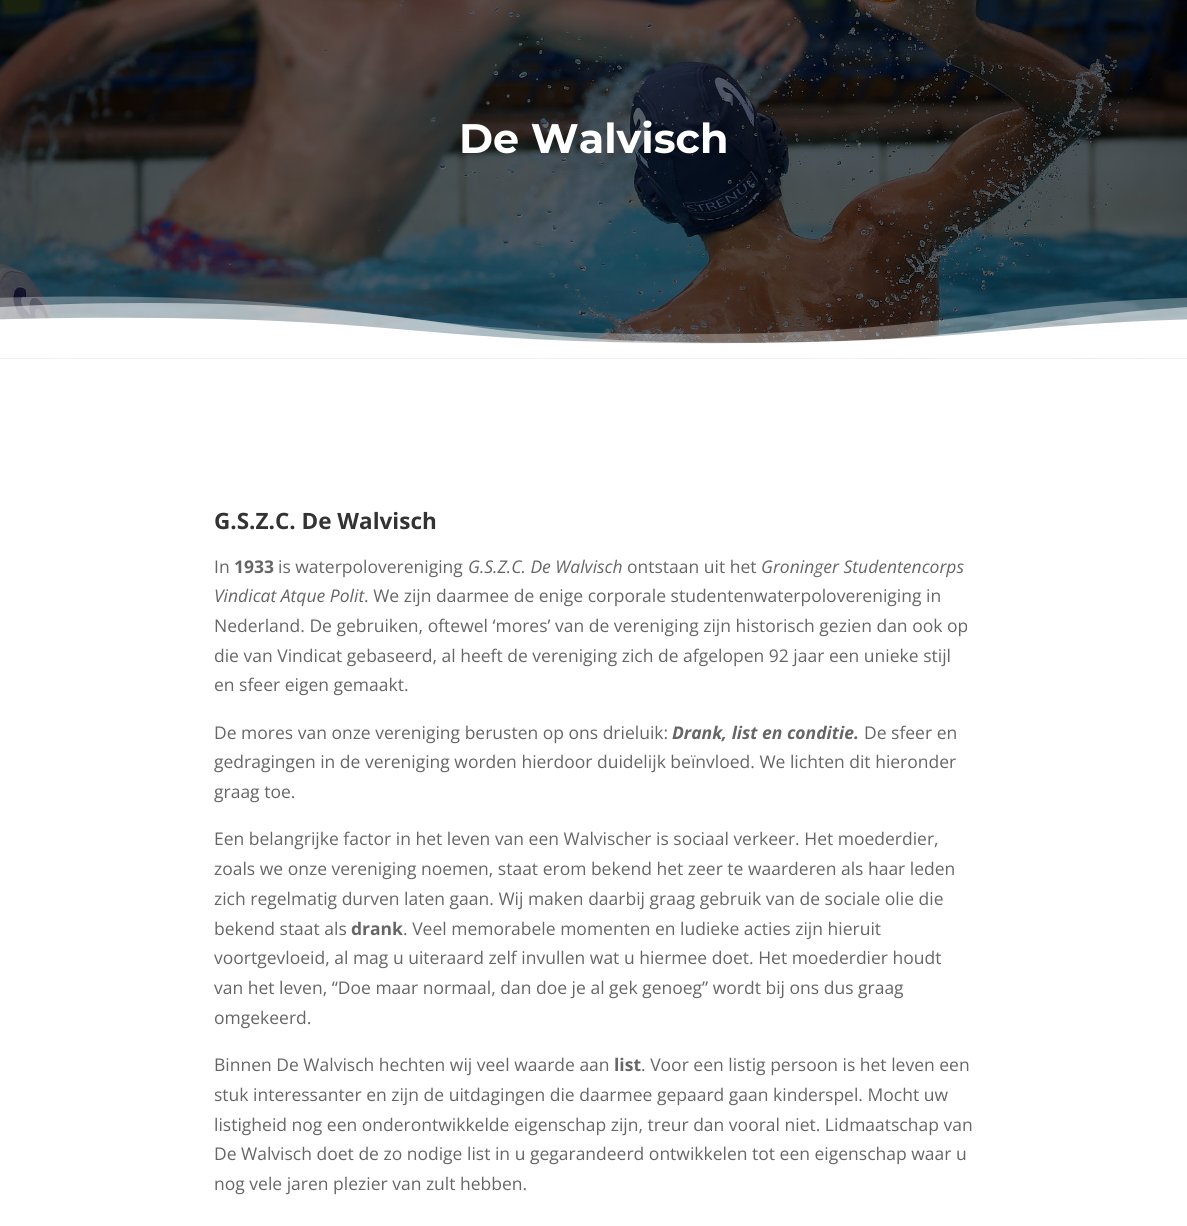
import math
import cairo


def paste(ctx, path, x, y, w, h):
	ctx.save()
	ctx.set_source_surface(cairo.ImageSurface.create_from_png(path), x, y)
	ctx.rectangle(x, y, w, h)
	ctx.fill()
	ctx.restore()

def draw(ctx):
	ctx.set_source_rgb(1, 1, 1)
	ctx.paint()
	paste(ctx, 'media/1.png', 0, 0, 1187, 359)
	ctx.select_font_face('Montserrat Thin')
	ctx.set_font_size(41.25)
	ctx.set_source_rgb(1, 1, 1)
	ctx.move_to(459, 153)
	ctx.show_text('De Walvisch')
	paste(ctx, 'media/2.png', 0, 296, 1187, 63)
	ctx.select_font_face('Open Sans', cairo.FONT_SLANT_NORMAL, cairo.FONT_WEIGHT_BOLD)
	ctx.set_font_size(22.5)
	ctx.set_source_rgb(0.2, 0.2, 0.2)
	ctx.move_to(214, 529)
	ctx.show_text('G.S.Z.C. De Walvisch')
	ctx.select_font_face('Open Sans')
	ctx.set_font_size(17.5)
	ctx.set_source_rgb(0.4, 0.4, 0.4)
	ctx.move_to(214, 573)
	ctx.show_text('In')
	ctx.select_font_face('Open Sans', cairo.FONT_SLANT_NORMAL, cairo.FONT_WEIGHT_BOLD)
	ctx.move_to(234, 573)
	ctx.show_text('1933')
	ctx.select_font_face('Open Sans')
	ctx.move_to(278, 573)
	ctx.show_text('is waterpolovereniging')
	ctx.select_font_face('Open Sans', cairo.FONT_SLANT_ITALIC)
	ctx.move_to(468, 573)
	ctx.show_text('G.S.Z.C. De Walvisch')
	ctx.select_font_face('Open Sans')
	ctx.move_to(627, 573)
	ctx.show_text('ontstaan uit het')
	ctx.select_font_face('Open Sans', cairo.FONT_SLANT_ITALIC)
	ctx.move_to(761, 573)
	ctx.show_text('Groninger Studentencorps')
	ctx.move_to(214, 602)
	ctx.show_text('Vindicat Atque Polit')
	ctx.select_font_face('Open Sans')
	for x, y, s in [
		(364, 602, '. We zijn daarmee de enige corporale studentenwaterpolovereniging in'),
		(214, 632, 'Nederland. De gebruiken, oftewel ‘mores’ van de vereniging zijn historisch gezien dan ook op'),
		(214, 662, 'die van Vindicat gebaseerd, al heeft de vereniging zich de afgelopen 92 jaar een unieke stijl'),
		(214, 691, 'en sfeer eigen gemaakt.'),
		(214, 739, 'De mores van onze vereniging berusten op ons drieluik:'),
	]:
		ctx.move_to(x, y)
		ctx.show_text(s)
	ctx.select_font_face('Open Sans', cairo.FONT_SLANT_ITALIC, cairo.FONT_WEIGHT_BOLD)
	ctx.move_to(672, 739)
	ctx.show_text('Drank, list en conditie.')
	ctx.select_font_face('Open Sans')
	for x, y, s in [
		(864, 739, 'De sfeer en'),
		(214, 768, 'gedragingen in de vereniging worden hierdoor duidelijk beïnvloed. We lichten dit hieronder'),
		(214, 798, 'graag toe.'),
		(214, 845, 'Een belangrijke factor in het leven van een Walvischer is sociaal verkeer. Het moederdier,'),
		(214, 875, 'zoals we onze vereniging noemen, staat erom bekend het zeer te waarderen als haar leden'),
		(214, 905, 'zich regelmatig durven laten gaan. Wij maken daarbij graag gebruik van de sociale olie die'),
		(214, 935, 'bekend staat als'),
	]:
		ctx.move_to(x, y)
		ctx.show_text(s)
	ctx.select_font_face('Open Sans', cairo.FONT_SLANT_NORMAL, cairo.FONT_WEIGHT_BOLD)
	ctx.move_to(351, 935)
	ctx.show_text('drank')
	ctx.select_font_face('Open Sans')
	for x, y, s in [
		(403, 935, '. Veel memorabele momenten en ludieke acties zijn hieruit'),
		(214, 964, 'voortgevloeid, al mag u uiteraard zelf invullen wat u hiermee doet. Het moederdier houdt'),
		(214, 994, 'van het leven, “Doe maar normaal, dan doe je al gek genoeg” wordt bij ons dus graag'),
		(214, 1024, 'omgekeerd.'),
		(214, 1071, 'Binnen De Walvisch hechten wij veel waarde aan'),
	]:
		ctx.move_to(x, y)
		ctx.show_text(s)
	ctx.select_font_face('Open Sans', cairo.FONT_SLANT_NORMAL, cairo.FONT_WEIGHT_BOLD)
	ctx.move_to(614, 1071)
	ctx.show_text('list')
	ctx.select_font_face('Open Sans')
	for x, y, s in [
		(641, 1071, '. Voor een listig persoon is het leven een'),
		(214, 1101, 'stuk interessanter en zijn de uitdagingen die daarmee gepaard gaan kinderspel. Mocht uw'),
		(214, 1131, 'listigheid nog een onderontwikkelde eigenschap zijn, treur dan vooral niet. Lidmaatschap van'),
		(214, 1160, 'De Walvisch doet de zo nodige list in u gegarandeerd ontwikkelen tot een eigenschap waar u'),
		(214, 1190, 'nog vele jaren plezier van zult hebben.'),
	]:
		ctx.move_to(x, y)
		ctx.show_text(s)


surface = cairo.ImageSurface(cairo.FORMAT_RGB24, 1187, 1226)
ctx = cairo.Context(surface)
options = cairo.FontOptions()
options.set_hint_metrics(cairo.HINT_METRICS_OFF)
options.set_hint_style(cairo.HINT_STYLE_NONE)
ctx.set_font_options(options)
ctx.set_miter_limit(4)
draw(ctx)
surface.write_to_png('image.png')
